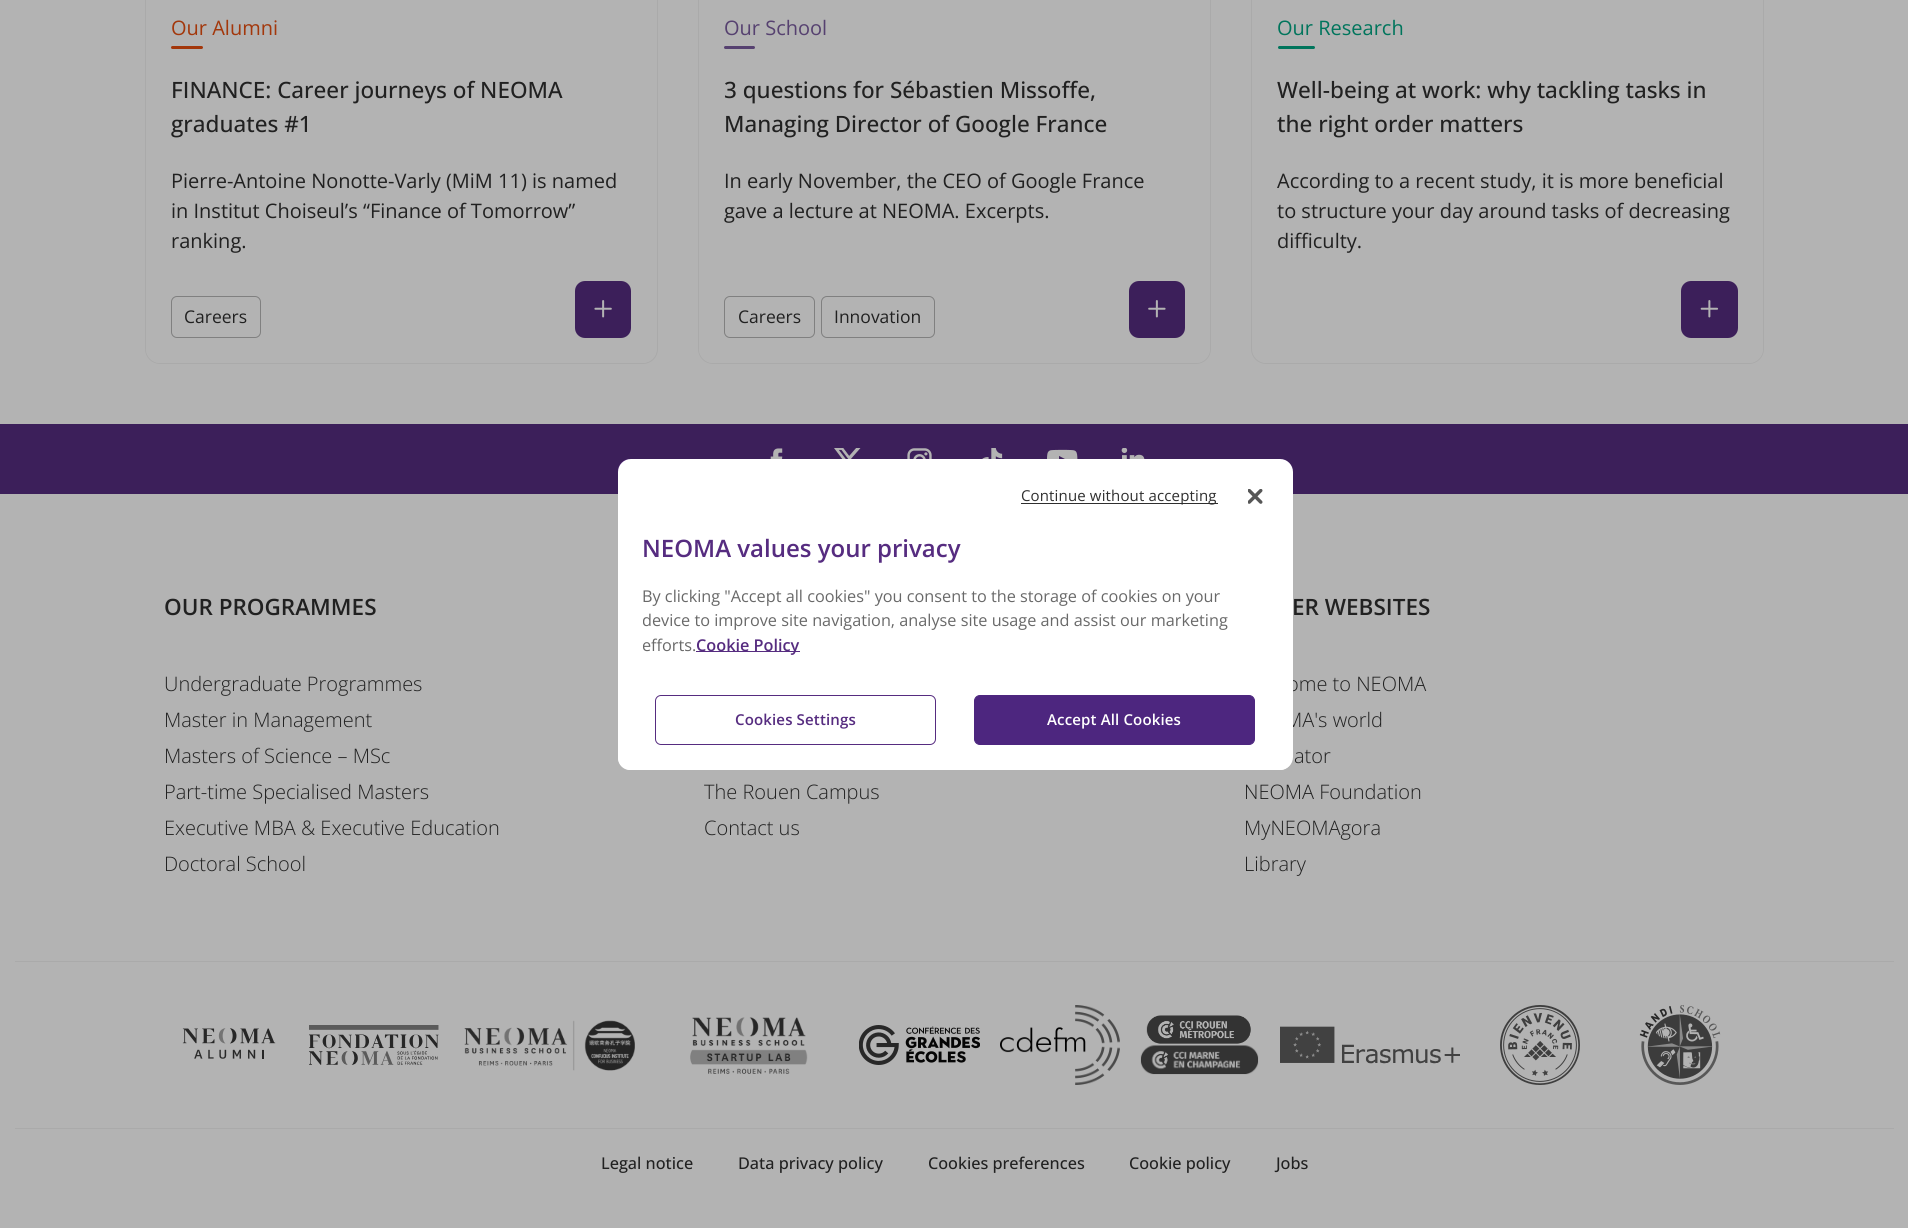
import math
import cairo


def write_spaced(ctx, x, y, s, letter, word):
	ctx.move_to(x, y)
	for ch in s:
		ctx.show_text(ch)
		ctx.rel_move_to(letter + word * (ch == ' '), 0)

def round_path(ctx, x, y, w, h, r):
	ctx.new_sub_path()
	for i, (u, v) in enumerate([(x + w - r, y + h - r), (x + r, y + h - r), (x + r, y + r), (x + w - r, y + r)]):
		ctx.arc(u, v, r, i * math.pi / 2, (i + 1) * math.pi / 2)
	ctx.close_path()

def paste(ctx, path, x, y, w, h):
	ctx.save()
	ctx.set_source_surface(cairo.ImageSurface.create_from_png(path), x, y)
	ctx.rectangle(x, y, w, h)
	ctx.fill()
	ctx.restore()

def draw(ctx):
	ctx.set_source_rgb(1, 1, 1)
	ctx.paint()
	round_path(ctx, 145.5, -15.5, 512, 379, 14.5)
	ctx.set_source_rgb(0.949, 0.949, 0.949)
	ctx.set_line_width(1)
	ctx.stroke()
	ctx.set_source_rgb(1, 1, 1)
	ctx.new_path()
	ctx.move_to(146, -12)
	ctx.line_to(656, -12)
	ctx.line_to(656, 349)
	ctx.curve_to(656, 356.5, 649.5, 363, 642, 363)
	ctx.line_to(160, 363)
	ctx.curve_to(152.5, 363, 146, 356.5, 146, 349)
	ctx.close_path()
	ctx.fill()
	ctx.select_font_face('Open Sans')
	ctx.set_font_size(20)
	ctx.set_source_rgb(0.91, 0.306, 0.059)
	ctx.move_to(171, 35)
	ctx.show_text('Our Alumni')
	round_path(ctx, 171, 46, 32, 3, 1.5)
	ctx.fill()
	ctx.select_font_face('Open Sans Medium')
	ctx.set_font_size(22.5)
	ctx.set_source_rgb(0.184, 0.184, 0.184)
	ctx.move_to(171, 98)
	ctx.show_text('FINANCE: Career journeys of NEOMA')
	ctx.move_to(171, 132)
	ctx.show_text('graduates #1')
	ctx.select_font_face('Open Sans')
	ctx.set_font_size(20)
	for x, y, s in [
		(171, 188, 'Pierre-Antoine Nonotte-Varly (MiM 11) is named'),
		(171, 218, 'in Institut Choiseul’s “Finance of Tomorrow”'),
		(171, 248, 'ranking.'),
	]:
		ctx.move_to(x, y)
		ctx.show_text(s)
	round_path(ctx, 171.5, 296.5, 89, 41, 5.5)
	ctx.set_source_rgb(0.714, 0.714, 0.714)
	ctx.stroke()
	ctx.set_font_size(17.5)
	ctx.set_source_rgb(0.184, 0.184, 0.184)
	ctx.move_to(184, 323)
	ctx.show_text('Careers')
	ctx.set_source_rgb(0.337, 0.173, 0.502)
	round_path(ctx, 575, 281, 56, 57, 10)
	ctx.fill()
	paste(ctx, 'media/1.png', 594, 300, 18, 18)
	round_path(ctx, 698.5, -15.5, 512, 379, 14.5)
	ctx.set_source_rgb(0.949, 0.949, 0.949)
	ctx.stroke()
	ctx.set_source_rgb(1, 1, 1)
	ctx.new_path()
	ctx.move_to(699, -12)
	ctx.line_to(1210, -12)
	ctx.line_to(1210, 349)
	ctx.curve_to(1210, 356.5, 1203.5, 363, 1196, 363)
	ctx.line_to(713, 363)
	ctx.curve_to(705.5, 363, 699, 356.5, 699, 349)
	ctx.close_path()
	ctx.fill()
	ctx.set_font_size(20)
	ctx.set_source_rgb(0.478, 0.361, 0.624)
	ctx.move_to(724, 35)
	ctx.show_text('Our School')
	round_path(ctx, 724, 46, 31, 3, 1.5)
	ctx.fill()
	ctx.select_font_face('Open Sans Medium')
	ctx.set_font_size(22.5)
	ctx.set_source_rgb(0.184, 0.184, 0.184)
	ctx.move_to(724, 98)
	ctx.show_text('3 questions for Sébastien Missoffe,')
	ctx.move_to(724, 132)
	ctx.show_text('Managing Director of Google France')
	ctx.select_font_face('Open Sans')
	ctx.set_font_size(20)
	ctx.move_to(724, 188)
	ctx.show_text('In early November, the CEO of Google France')
	ctx.move_to(724, 218)
	ctx.show_text('gave a lecture at NEOMA. Excerpts.')
	round_path(ctx, 724.5, 296.5, 90, 41, 5.5)
	ctx.set_source_rgb(0.714, 0.714, 0.714)
	ctx.stroke()
	ctx.set_font_size(17.5)
	ctx.set_source_rgb(0.184, 0.184, 0.184)
	ctx.move_to(738, 323)
	ctx.show_text('Careers')
	round_path(ctx, 821.5, 296.5, 113, 41, 5.5)
	ctx.set_source_rgb(0.714, 0.714, 0.714)
	ctx.stroke()
	ctx.set_source_rgb(0.184, 0.184, 0.184)
	ctx.move_to(834, 323)
	ctx.show_text('Innovation')
	ctx.set_source_rgb(0.337, 0.173, 0.502)
	round_path(ctx, 1129, 281, 56, 57, 10)
	ctx.fill()
	paste(ctx, 'media/2.png', 1148, 300, 18, 18)
	round_path(ctx, 1251.5, -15.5, 512, 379, 14.5)
	ctx.set_source_rgb(0.949, 0.949, 0.949)
	ctx.stroke()
	ctx.set_source_rgb(1, 1, 1)
	ctx.new_path()
	ctx.move_to(1253, -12)
	ctx.line_to(1763, -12)
	ctx.line_to(1763, 349)
	ctx.curve_to(1763, 356.5, 1756.5, 363, 1749, 363)
	ctx.line_to(1267, 363)
	ctx.curve_to(1259.5, 363, 1253, 356.5, 1253, 349)
	ctx.close_path()
	ctx.fill()
	ctx.set_font_size(20)
	ctx.set_source_rgb(0, 0.651, 0.514)
	ctx.move_to(1277, 35)
	ctx.show_text('Our Research')
	round_path(ctx, 1278, 46, 37, 3, 1.5)
	ctx.fill()
	ctx.select_font_face('Open Sans Medium')
	ctx.set_font_size(22.5)
	ctx.set_source_rgb(0.184, 0.184, 0.184)
	ctx.move_to(1277, 98)
	ctx.show_text('Well-being at work: why tackling tasks in')
	ctx.move_to(1277, 132)
	ctx.show_text('the right order matters')
	ctx.select_font_face('Open Sans')
	ctx.set_font_size(20)
	for x, y, s in [
		(1277, 188, 'According to a recent study, it is more beneficial'),
		(1277, 218, 'to structure your day around tasks of decreasing'),
		(1277, 248, 'difficulty.'),
	]:
		ctx.move_to(x, y)
		ctx.show_text(s)
	ctx.set_source_rgb(0.337, 0.173, 0.502)
	round_path(ctx, 1681, 281, 57, 57, 10)
	ctx.fill()
	paste(ctx, 'media/3.png', 1700, 300, 19, 18)
	ctx.rectangle(0, 424, 1908, 70)
	ctx.fill()
	paste(ctx, 'media/4.png', 770, 448, 13, 11)
	paste(ctx, 'media/5.png', 834, 448, 27, 11)
	paste(ctx, 'media/6.png', 907, 448, 25, 11)
	paste(ctx, 'media/7.png', 982, 448, 21, 11)
	paste(ctx, 'media/8.png', 1047, 449, 31, 10)
	paste(ctx, 'media/9.png', 1121, 448, 24, 11)
	ctx.select_font_face('Open Sans SemiBold')
	ctx.set_font_size(22.5)
	ctx.set_source_rgb(0.184, 0.184, 0.184)
	ctx.move_to(164, 615)
	ctx.show_text('OUR PROGRAMMES')
	ctx.select_font_face('Open Sans Light')
	ctx.set_font_size(20)
	for x, y, s in [
		(164, 691, 'Undergraduate Programmes'),
		(164, 727, 'Master in Management'),
		(164, 763, 'Masters of Science – MSc'),
		(164, 799, 'Part-time Specialised Masters'),
		(164, 835, 'Executive MBA & Executive Education'),
		(164, 871, 'Doctoral School'),
		(704, 799, 'The Rouen Campus'),
		(704, 835, 'Contact us'),
	]:
		ctx.move_to(x, y)
		ctx.show_text(s)
	ctx.select_font_face('Open Sans SemiBold')
	ctx.set_font_size(22.5)
	ctx.move_to(1292, 615)
	ctx.show_text('ER WEBSITES')
	ctx.select_font_face('Open Sans Light')
	ctx.set_font_size(20)
	for x, y, s in [
		(1287, 691, 'ome to NEOMA'),
		(1285, 727, 'MA\'s world'),
		(1294, 763, 'ator'),
		(1244, 799, 'NEOMA Foundation'),
		(1244, 835, 'MyNEOMAgora'),
		(1244, 871, 'Library'),
	]:
		ctx.move_to(x, y)
		ctx.show_text(s)
	ctx.set_source_rgb(0.949, 0.949, 0.949)
	ctx.rectangle(15, 961, 1879, 1)
	ctx.fill()
	ctx.rectangle(15, 1128, 1879, 1)
	ctx.fill()
	paste(ctx, 'media/10.png', 182, 1028, 94, 31)
	paste(ctx, 'media/11.png', 309, 1025, 130, 40)
	paste(ctx, 'media/12.png', 464, 1020, 171, 51)
	paste(ctx, 'media/13.png', 690, 1017, 118, 57)
	paste(ctx, 'media/14.png', 859, 1025, 121, 40)
	paste(ctx, 'media/15.png', 1000, 1005, 120, 80)
	paste(ctx, 'media/16.png', 1140, 1015, 119, 60)
	paste(ctx, 'media/17.png', 1280, 1026, 180, 38)
	paste(ctx, 'media/18.png', 1500, 1005, 80, 80)
	paste(ctx, 'media/19.png', 1639, 1005, 82, 80)
	ctx.select_font_face('Open Sans Medium')
	ctx.set_font_size(16.25)
	ctx.set_source_rgb(0.184, 0.184, 0.184)
	for x, y, s in [
		(601, 1169, 'Legal notice'),
		(738, 1169, 'Data privacy policy'),
		(928, 1169, 'Cookies preferences'),
		(1129, 1169, 'Cookie policy'),
		(1276, 1169, 'Jobs'),
	]:
		ctx.move_to(x, y)
		ctx.show_text(s)
	round_path(ctx, -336.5, -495.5, 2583, 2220, 966.5)
	ctx.set_source_rgba(0, 0, 0, 0.3)
	ctx.set_line_width(1909)
	ctx.stroke()
	ctx.set_source_rgb(1, 1, 1)
	round_path(ctx, 618, 459, 675, 311, 13)
	ctx.fill()
	ctx.set_source_rgb(0.184, 0.184, 0.184)
	ctx.rectangle(1021, 503, 197, 1)
	ctx.fill()
	ctx.select_font_face('Open Sans')
	ctx.set_font_size(15)
	write_spaced(ctx, 1021, 501, 'Continue without accepting', 0.15, 0)
	round_path(ctx, 655.5, 695.5, 280, 49, 5.5)
	ctx.set_source_rgb(0.337, 0.173, 0.502)
	ctx.set_line_width(1)
	ctx.stroke()
	ctx.select_font_face('Open Sans SemiBold')
	write_spaced(ctx, 735, 725, 'Cookies Settings', 0.15, 0)
	ctx.set_source_rgb(0.302, 0.149, 0.498)
	round_path(ctx, 974.5, 695.5, 280, 49, 5.5)
	ctx.fill_preserve()
	ctx.stroke()
	ctx.set_source_rgb(1, 1, 1)
	write_spaced(ctx, 1047, 725, 'Accept All Cookies', 0.15, 0)
	ctx.set_font_size(24)
	ctx.set_source_rgb(0.337, 0.173, 0.502)
	ctx.move_to(642, 557)
	ctx.show_text('NEOMA values your privacy')
	ctx.select_font_face('Open Sans')
	ctx.set_font_size(16.25)
	ctx.set_source_rgb(0.412, 0.412, 0.412)
	ctx.move_to(642, 602)
	ctx.show_text('By clicking "Accept all cookies" you consent to the storage of cookies on your')
	ctx.save()
	ctx.rectangle(643, 534, 625, 161)
	ctx.clip()
	ctx.move_to(642, 626)
	ctx.show_text('device to improve site navigation, analyse site usage and assist our marketing')
	ctx.move_to(642, 651)
	ctx.show_text('efforts.')
	ctx.restore()
	ctx.set_source_rgb(0.337, 0.173, 0.502)
	ctx.rectangle(696, 651, 104, 1)
	ctx.fill()
	ctx.select_font_face('Open Sans SemiBold')
	ctx.move_to(696, 651)
	ctx.show_text('Cookie Policy')
	paste(ctx, 'media/20.png', 1248, 489, 15, 15)


surface = cairo.ImageSurface(cairo.FORMAT_RGB24, 1908, 1228)
ctx = cairo.Context(surface)
options = cairo.FontOptions()
options.set_hint_metrics(cairo.HINT_METRICS_OFF)
options.set_hint_style(cairo.HINT_STYLE_NONE)
ctx.set_font_options(options)
ctx.set_miter_limit(4)
draw(ctx)
surface.write_to_png('image.png')
